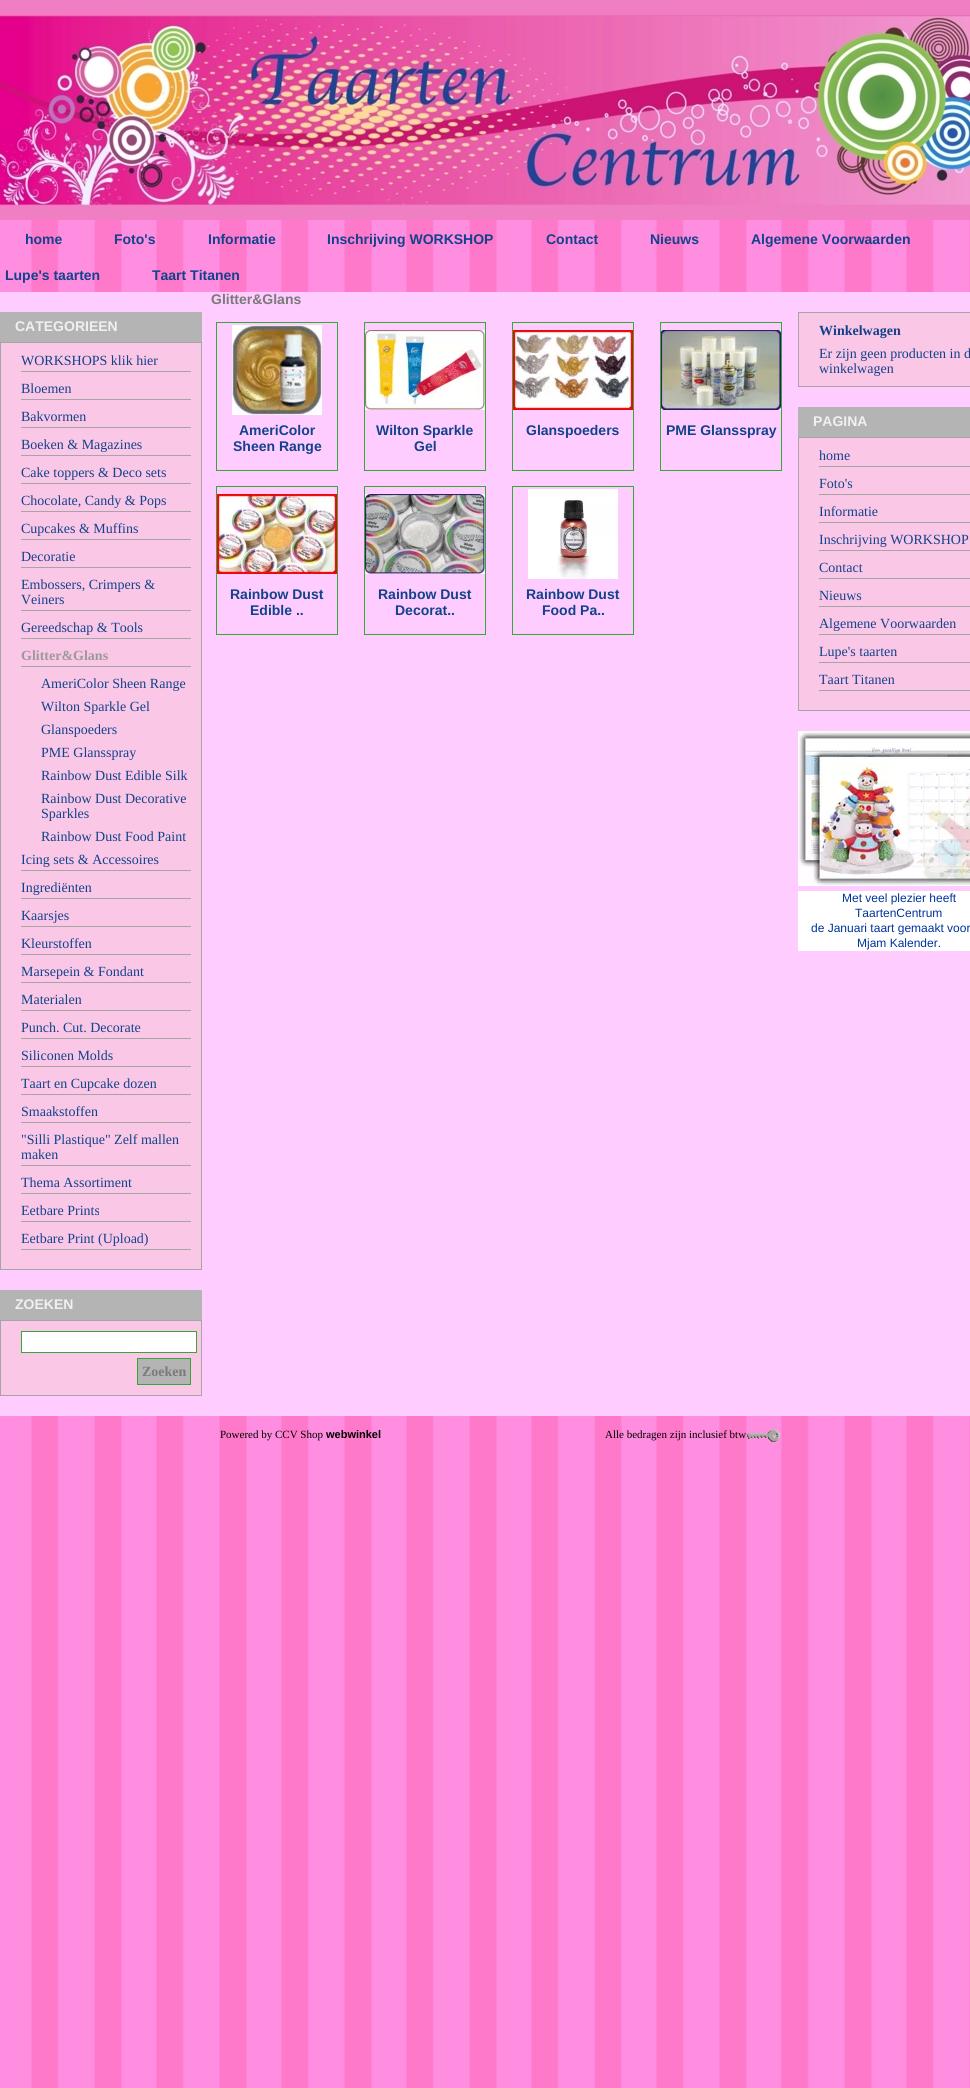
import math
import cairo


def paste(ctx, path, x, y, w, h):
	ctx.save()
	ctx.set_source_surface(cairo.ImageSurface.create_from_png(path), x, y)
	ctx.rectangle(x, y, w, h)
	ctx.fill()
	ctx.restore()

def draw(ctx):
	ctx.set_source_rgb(1, 1, 1)
	ctx.paint()
	paste(ctx, 'media/1.png', 0, 220, 970, 1868)
	paste(ctx, 'media/2.png', 0, 0, 970, 220)
	ctx.select_font_face('Liberation Sans', cairo.FONT_SLANT_NORMAL, cairo.FONT_WEIGHT_BOLD)
	ctx.set_font_size(14)
	ctx.set_source_rgb(0.071, 0.259, 0.545)
	for x, y, s in [
		(25, 244, 'home'),
		(114, 244, 'Foto\'s'),
		(208, 244, 'Informatie'),
		(327, 244, 'Inschrijving WORKSHOP'),
		(546, 244, 'Contact'),
		(650, 244, 'Nieuws'),
		(751, 244, 'Algemene Voorwaarden'),
		(5, 280, 'Lupe\'s taarten'),
		(152, 280, 'Taart Titanen'),
	]:
		ctx.move_to(x, y)
		ctx.show_text(s)
	ctx.set_source_rgb(1, 0.8, 1)
	ctx.rectangle(0, 292, 970, 1124)
	ctx.fill()
	ctx.set_source_rgb(0.706, 0.706, 0.706)
	ctx.rectangle(0, 312, 202, 30)
	ctx.fill()
	ctx.set_source_rgb(0.945, 0.941, 0.945)
	ctx.move_to(15, 331)
	ctx.show_text('CATEGORIEEN')
	ctx.set_source_rgb(0.98, 0.784, 0.902)
	ctx.rectangle(0.5, 342.5, 201, 927)
	ctx.fill_preserve()
	ctx.set_source_rgb(0.647, 0.647, 0.647)
	ctx.set_line_width(1)
	ctx.stroke()
	ctx.rectangle(21, 371, 170, 1)
	ctx.fill()
	ctx.select_font_face('Liberation Serif')
	ctx.set_source_rgb(0.071, 0.259, 0.545)
	ctx.move_to(21, 365)
	ctx.show_text('WORKSHOPS klik hier')
	ctx.set_source_rgb(0.647, 0.647, 0.647)
	ctx.rectangle(21, 399, 170, 1)
	ctx.fill()
	ctx.set_source_rgb(0.071, 0.259, 0.545)
	ctx.move_to(21, 393)
	ctx.show_text('Bloemen')
	ctx.set_source_rgb(0.647, 0.647, 0.647)
	ctx.rectangle(21, 427, 170, 1)
	ctx.fill()
	ctx.set_source_rgb(0.071, 0.259, 0.545)
	ctx.move_to(21, 421)
	ctx.show_text('Bakvormen')
	ctx.set_source_rgb(0.647, 0.647, 0.647)
	ctx.rectangle(21, 455, 170, 1)
	ctx.fill()
	ctx.set_source_rgb(0.071, 0.259, 0.545)
	ctx.move_to(21, 449)
	ctx.show_text('Boeken & Magazines')
	ctx.set_source_rgb(0.647, 0.647, 0.647)
	ctx.rectangle(21, 483, 170, 1)
	ctx.fill()
	ctx.set_source_rgb(0.071, 0.259, 0.545)
	ctx.move_to(21, 477)
	ctx.show_text('Cake toppers & Deco sets')
	ctx.set_source_rgb(0.647, 0.647, 0.647)
	ctx.rectangle(21, 511, 170, 1)
	ctx.fill()
	ctx.set_source_rgb(0.071, 0.259, 0.545)
	ctx.move_to(21, 505)
	ctx.show_text('Chocolate, Candy & Pops')
	ctx.set_source_rgb(0.647, 0.647, 0.647)
	ctx.rectangle(21, 539, 170, 1)
	ctx.fill()
	ctx.set_source_rgb(0.071, 0.259, 0.545)
	ctx.move_to(21, 533)
	ctx.show_text('Cupcakes & Muffins')
	ctx.set_source_rgb(0.647, 0.647, 0.647)
	ctx.rectangle(21, 567, 170, 1)
	ctx.fill()
	ctx.set_source_rgb(0.071, 0.259, 0.545)
	ctx.move_to(21, 561)
	ctx.show_text('Decoratie')
	ctx.set_source_rgb(0.647, 0.647, 0.647)
	ctx.rectangle(21, 610, 170, 1)
	ctx.fill()
	ctx.set_source_rgb(0.071, 0.259, 0.545)
	ctx.move_to(21, 589)
	ctx.show_text('Embossers, Crimpers &')
	ctx.move_to(21, 604)
	ctx.show_text('Veiners')
	ctx.set_source_rgb(0.647, 0.647, 0.647)
	ctx.rectangle(21, 638, 170, 1)
	ctx.fill()
	ctx.set_source_rgb(0.071, 0.259, 0.545)
	ctx.move_to(21, 632)
	ctx.show_text('Gereedschap & Tools')
	ctx.set_source_rgb(0.647, 0.647, 0.647)
	ctx.rectangle(21, 666, 170, 1)
	ctx.fill()
	ctx.select_font_face('Liberation Serif', cairo.FONT_SLANT_NORMAL, cairo.FONT_WEIGHT_BOLD)
	ctx.set_source_rgb(0.608, 0.6, 0.6)
	ctx.move_to(21, 660)
	ctx.show_text('Glitter&Glans')
	ctx.select_font_face('Liberation Serif')
	ctx.set_source_rgb(0.071, 0.259, 0.545)
	for x, y, s in [
		(41, 688, 'AmeriColor Sheen Range'),
		(41, 711, 'Wilton Sparkle Gel'),
		(41, 734, 'Glanspoeders'),
		(41, 757, 'PME Glansspray'),
		(41, 780, 'Rainbow Dust Edible Silk'),
		(41, 803, 'Rainbow Dust Decorative'),
		(41, 818, 'Sparkles'),
		(41, 841, 'Rainbow Dust Food Paint'),
	]:
		ctx.move_to(x, y)
		ctx.show_text(s)
	ctx.set_source_rgb(0.647, 0.647, 0.647)
	ctx.rectangle(21, 870, 170, 1)
	ctx.fill()
	ctx.set_source_rgb(0.071, 0.259, 0.545)
	ctx.move_to(21, 864)
	ctx.show_text('Icing sets & Accessoires')
	ctx.set_source_rgb(0.647, 0.647, 0.647)
	ctx.rectangle(21, 898, 170, 1)
	ctx.fill()
	ctx.set_source_rgb(0.071, 0.259, 0.545)
	ctx.move_to(21, 892)
	ctx.show_text('Ingrediënten')
	ctx.set_source_rgb(0.647, 0.647, 0.647)
	ctx.rectangle(21, 926, 170, 1)
	ctx.fill()
	ctx.set_source_rgb(0.071, 0.259, 0.545)
	ctx.move_to(21, 920)
	ctx.show_text('Kaarsjes')
	ctx.set_source_rgb(0.647, 0.647, 0.647)
	ctx.rectangle(21, 954, 170, 1)
	ctx.fill()
	ctx.set_source_rgb(0.071, 0.259, 0.545)
	ctx.move_to(21, 948)
	ctx.show_text('Kleurstoffen')
	ctx.set_source_rgb(0.647, 0.647, 0.647)
	ctx.rectangle(21, 982, 170, 1)
	ctx.fill()
	ctx.set_source_rgb(0.071, 0.259, 0.545)
	ctx.move_to(21, 976)
	ctx.show_text('Marsepein & Fondant')
	ctx.set_source_rgb(0.647, 0.647, 0.647)
	ctx.rectangle(21, 1010, 170, 1)
	ctx.fill()
	ctx.set_source_rgb(0.071, 0.259, 0.545)
	ctx.move_to(21, 1004)
	ctx.show_text('Materialen')
	ctx.set_source_rgb(0.647, 0.647, 0.647)
	ctx.rectangle(21, 1038, 170, 1)
	ctx.fill()
	ctx.set_source_rgb(0.071, 0.259, 0.545)
	ctx.move_to(21, 1032)
	ctx.show_text('Punch. Cut. Decorate')
	ctx.set_source_rgb(0.647, 0.647, 0.647)
	ctx.rectangle(21, 1066, 170, 1)
	ctx.fill()
	ctx.set_source_rgb(0.071, 0.259, 0.545)
	ctx.move_to(21, 1060)
	ctx.show_text('Siliconen Molds')
	ctx.set_source_rgb(0.647, 0.647, 0.647)
	ctx.rectangle(21, 1094, 170, 1)
	ctx.fill()
	ctx.set_source_rgb(0.071, 0.259, 0.545)
	ctx.move_to(21, 1088)
	ctx.show_text('Taart en Cupcake dozen')
	ctx.set_source_rgb(0.647, 0.647, 0.647)
	ctx.rectangle(21, 1122, 170, 1)
	ctx.fill()
	ctx.set_source_rgb(0.071, 0.259, 0.545)
	ctx.move_to(21, 1116)
	ctx.show_text('Smaakstoffen')
	ctx.set_source_rgb(0.647, 0.647, 0.647)
	ctx.rectangle(21, 1165, 170, 1)
	ctx.fill()
	ctx.set_source_rgb(0.071, 0.259, 0.545)
	ctx.move_to(21, 1144)
	ctx.show_text('"Silli Plastique" Zelf mallen')
	ctx.move_to(21, 1159)
	ctx.show_text('maken')
	ctx.set_source_rgb(0.647, 0.647, 0.647)
	ctx.rectangle(21, 1193, 170, 1)
	ctx.fill()
	ctx.set_source_rgb(0.071, 0.259, 0.545)
	ctx.move_to(21, 1187)
	ctx.show_text('Thema Assortiment')
	ctx.set_source_rgb(0.647, 0.647, 0.647)
	ctx.rectangle(21, 1221, 170, 1)
	ctx.fill()
	ctx.set_source_rgb(0.071, 0.259, 0.545)
	ctx.move_to(21, 1215)
	ctx.show_text('Eetbare Prints')
	ctx.set_source_rgb(0.647, 0.647, 0.647)
	ctx.rectangle(21, 1249, 170, 1)
	ctx.fill()
	ctx.set_source_rgb(0.071, 0.259, 0.545)
	ctx.move_to(21, 1243)
	ctx.show_text('Eetbare Print (Upload)')
	ctx.set_source_rgb(0.706, 0.706, 0.706)
	ctx.rectangle(0, 1290, 202, 30)
	ctx.fill()
	ctx.select_font_face('Liberation Sans', cairo.FONT_SLANT_NORMAL, cairo.FONT_WEIGHT_BOLD)
	ctx.set_source_rgb(0.945, 0.941, 0.945)
	ctx.move_to(15, 1309)
	ctx.show_text('ZOEKEN')
	ctx.set_source_rgb(0.98, 0.784, 0.902)
	ctx.rectangle(0.5, 1320.5, 201, 75)
	ctx.fill_preserve()
	ctx.set_source_rgb(0.647, 0.647, 0.647)
	ctx.stroke()
	ctx.set_source_rgb(1, 1, 1)
	ctx.rectangle(21.5, 1331.5, 175, 21)
	ctx.fill_preserve()
	ctx.set_source_rgb(0.204, 0.655, 0.204)
	ctx.stroke()
	ctx.set_source_rgb(0.706, 0.706, 0.706)
	ctx.rectangle(137.5, 1358.5, 53, 26)
	ctx.fill_preserve()
	ctx.set_source_rgb(0.204, 0.655, 0.204)
	ctx.stroke()
	ctx.select_font_face('Liberation Serif', cairo.FONT_SLANT_NORMAL, cairo.FONT_WEIGHT_BOLD)
	ctx.set_source_rgb(0.478, 0.478, 0.478)
	ctx.move_to(142, 1376)
	ctx.show_text('Zoeken')
	ctx.select_font_face('Liberation Sans', cairo.FONT_SLANT_NORMAL, cairo.FONT_WEIGHT_BOLD)
	ctx.move_to(211, 304)
	ctx.show_text('Glitter&Glans')
	ctx.set_source_rgb(0.204, 0.655, 0.204)
	ctx.rectangle(216, 322, 122, 1)
	ctx.rectangle(337, 322, 1, 149)
	ctx.rectangle(216, 322, 1, 94)
	ctx.fill()
	paste(ctx, 'media/3.png', 232, 325, 90, 90)
	ctx.rectangle(216, 470, 122, 1)
	ctx.fill()
	ctx.rectangle(216, 416, 1, 55)
	ctx.fill()
	ctx.set_source_rgb(0.071, 0.259, 0.545)
	ctx.move_to(239, 435)
	ctx.show_text('AmeriColor')
	ctx.move_to(233, 451)
	ctx.show_text('Sheen Range')
	ctx.set_source_rgb(0.204, 0.655, 0.204)
	ctx.rectangle(364, 322, 122, 1)
	ctx.rectangle(485, 322, 1, 149)
	ctx.rectangle(364, 322, 1, 94)
	ctx.fill()
	paste(ctx, 'media/4.png', 365, 330, 120, 80)
	ctx.rectangle(364, 470, 122, 1)
	ctx.fill()
	ctx.rectangle(364, 416, 1, 55)
	ctx.fill()
	ctx.set_source_rgb(0.071, 0.259, 0.545)
	ctx.move_to(376, 435)
	ctx.show_text('Wilton Sparkle')
	ctx.move_to(414, 451)
	ctx.show_text('Gel')
	ctx.set_source_rgb(0.204, 0.655, 0.204)
	ctx.rectangle(512, 322, 122, 1)
	ctx.rectangle(633, 322, 1, 149)
	ctx.rectangle(512, 322, 1, 94)
	ctx.fill()
	paste(ctx, 'media/5.png', 513, 330, 120, 80)
	ctx.rectangle(512, 470, 122, 1)
	ctx.fill()
	ctx.rectangle(512, 416, 1, 55)
	ctx.fill()
	ctx.set_source_rgb(0.071, 0.259, 0.545)
	ctx.move_to(526, 435)
	ctx.show_text('Glanspoeders')
	ctx.set_source_rgb(0.204, 0.655, 0.204)
	ctx.rectangle(660, 322, 122, 1)
	ctx.rectangle(781, 322, 1, 149)
	ctx.rectangle(660, 322, 1, 94)
	ctx.fill()
	paste(ctx, 'media/6.png', 661, 330, 120, 80)
	ctx.rectangle(660, 470, 122, 1)
	ctx.fill()
	ctx.rectangle(660, 416, 1, 55)
	ctx.fill()
	ctx.set_source_rgb(0.071, 0.259, 0.545)
	ctx.move_to(666, 435)
	ctx.show_text('PME Glansspray')
	ctx.set_source_rgb(0.204, 0.655, 0.204)
	ctx.rectangle(216, 486, 122, 1)
	ctx.rectangle(337, 486, 1, 149)
	ctx.rectangle(216, 486, 1, 94)
	ctx.fill()
	paste(ctx, 'media/7.png', 217, 494, 120, 80)
	ctx.rectangle(216, 634, 122, 1)
	ctx.fill()
	ctx.rectangle(216, 580, 1, 55)
	ctx.fill()
	ctx.set_source_rgb(0.071, 0.259, 0.545)
	ctx.move_to(230, 599)
	ctx.show_text('Rainbow Dust')
	ctx.move_to(250, 615)
	ctx.show_text('Edible ..')
	ctx.set_source_rgb(0.204, 0.655, 0.204)
	ctx.rectangle(364, 486, 122, 1)
	ctx.rectangle(485, 486, 1, 149)
	ctx.rectangle(364, 486, 1, 94)
	ctx.fill()
	paste(ctx, 'media/8.png', 365, 494, 120, 80)
	ctx.rectangle(364, 634, 122, 1)
	ctx.fill()
	ctx.rectangle(364, 580, 1, 55)
	ctx.fill()
	ctx.set_source_rgb(0.071, 0.259, 0.545)
	ctx.move_to(378, 599)
	ctx.show_text('Rainbow Dust')
	ctx.move_to(395, 615)
	ctx.show_text('Decorat..')
	ctx.set_source_rgb(0.204, 0.655, 0.204)
	ctx.rectangle(512, 486, 122, 1)
	ctx.rectangle(633, 486, 1, 149)
	ctx.rectangle(512, 486, 1, 94)
	ctx.fill()
	paste(ctx, 'media/9.png', 528, 489, 90, 90)
	ctx.rectangle(512, 634, 122, 1)
	ctx.fill()
	ctx.rectangle(512, 580, 1, 55)
	ctx.fill()
	ctx.set_source_rgb(0.071, 0.259, 0.545)
	ctx.move_to(526, 599)
	ctx.show_text('Rainbow Dust')
	ctx.move_to(542, 615)
	ctx.show_text('Food Pa..')
	ctx.set_source_rgb(0.98, 0.784, 0.902)
	ctx.rectangle(798.5, 312.5, 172, 74)
	ctx.fill_preserve()
	ctx.set_source_rgb(0.647, 0.647, 0.647)
	ctx.stroke()
	ctx.select_font_face('Liberation Serif', cairo.FONT_SLANT_NORMAL, cairo.FONT_WEIGHT_BOLD)
	ctx.set_source_rgb(0.071, 0.259, 0.545)
	ctx.move_to(819, 335)
	ctx.show_text('Winkelwagen')
	ctx.select_font_face('Liberation Serif')
	ctx.move_to(819, 358)
	ctx.show_text('Er zijn geen producten in d')
	ctx.move_to(819, 373)
	ctx.show_text('winkelwagen')
	ctx.set_source_rgb(0.706, 0.706, 0.706)
	ctx.rectangle(798, 407, 172, 30)
	ctx.fill()
	ctx.select_font_face('Liberation Sans', cairo.FONT_SLANT_NORMAL, cairo.FONT_WEIGHT_BOLD)
	ctx.set_source_rgb(0.945, 0.941, 0.945)
	ctx.move_to(813, 426)
	ctx.show_text('PAGINA')
	ctx.set_source_rgb(0.98, 0.784, 0.902)
	ctx.rectangle(798.5, 437.5, 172, 273)
	ctx.fill_preserve()
	ctx.set_source_rgb(0.647, 0.647, 0.647)
	ctx.stroke()
	ctx.rectangle(819, 466, 151, 1)
	ctx.fill()
	ctx.select_font_face('Liberation Serif')
	ctx.set_source_rgb(0.071, 0.259, 0.545)
	ctx.move_to(819, 460)
	ctx.show_text('home')
	ctx.set_source_rgb(0.647, 0.647, 0.647)
	ctx.rectangle(819, 494, 151, 1)
	ctx.fill()
	ctx.set_source_rgb(0.071, 0.259, 0.545)
	ctx.move_to(819, 488)
	ctx.show_text('Foto\'s')
	ctx.set_source_rgb(0.647, 0.647, 0.647)
	ctx.rectangle(819, 522, 151, 1)
	ctx.fill()
	ctx.set_source_rgb(0.071, 0.259, 0.545)
	ctx.move_to(819, 516)
	ctx.show_text('Informatie')
	ctx.set_source_rgb(0.647, 0.647, 0.647)
	ctx.rectangle(819, 550, 151, 1)
	ctx.fill()
	ctx.set_source_rgb(0.071, 0.259, 0.545)
	ctx.move_to(819, 544)
	ctx.show_text('Inschrijving WORKSHOP')
	ctx.set_source_rgb(0.647, 0.647, 0.647)
	ctx.rectangle(819, 578, 151, 1)
	ctx.fill()
	ctx.set_source_rgb(0.071, 0.259, 0.545)
	ctx.move_to(819, 572)
	ctx.show_text('Contact')
	ctx.set_source_rgb(0.647, 0.647, 0.647)
	ctx.rectangle(819, 606, 151, 1)
	ctx.fill()
	ctx.set_source_rgb(0.071, 0.259, 0.545)
	ctx.move_to(819, 600)
	ctx.show_text('Nieuws')
	ctx.set_source_rgb(0.647, 0.647, 0.647)
	ctx.rectangle(819, 634, 151, 1)
	ctx.fill()
	ctx.set_source_rgb(0.071, 0.259, 0.545)
	ctx.move_to(819, 628)
	ctx.show_text('Algemene Voorwaarden')
	ctx.set_source_rgb(0.647, 0.647, 0.647)
	ctx.rectangle(819, 662, 151, 1)
	ctx.fill()
	ctx.set_source_rgb(0.071, 0.259, 0.545)
	ctx.move_to(819, 656)
	ctx.show_text('Lupe\'s taarten')
	ctx.set_source_rgb(0.647, 0.647, 0.647)
	ctx.rectangle(819, 690, 151, 1)
	ctx.fill()
	ctx.set_source_rgb(0.071, 0.259, 0.545)
	ctx.move_to(819, 684)
	ctx.show_text('Taart Titanen')
	paste(ctx, 'media/10.png', 798, 731, 172, 155)
	ctx.set_source_rgb(1, 1, 1)
	ctx.rectangle(798, 891, 172, 60)
	ctx.fill()
	ctx.select_font_face('Liberation Sans')
	ctx.set_font_size(12)
	ctx.set_source_rgb(0, 0.2, 0.6)
	for x, y, s in [
		(842, 902, 'Met veel plezier heeft'),
		(855, 917, 'TaartenCentrum'),
		(811, 932, 'de Januari taart gemaakt voor'),
		(857, 947, 'Mjam Kalender.'),
	]:
		ctx.move_to(x, y)
		ctx.show_text(s)
	ctx.select_font_face('Liberation Serif')
	ctx.set_font_size(11)
	ctx.set_source_rgb(0, 0, 0)
	ctx.move_to(220, 1438)
	ctx.show_text('Powered by CCV Shop')
	ctx.select_font_face('Liberation Sans', cairo.FONT_SLANT_NORMAL, cairo.FONT_WEIGHT_BOLD)
	ctx.move_to(326, 1438)
	ctx.show_text('webwinkel')
	ctx.select_font_face('Liberation Serif')
	ctx.move_to(605, 1438)
	ctx.show_text('Alle bedragen zijn inclusief btw')
	paste(ctx, 'media/11.png', 747, 1429, 33, 13)


surface = cairo.ImageSurface(cairo.FORMAT_RGB24, 970, 2088)
ctx = cairo.Context(surface)
options = cairo.FontOptions()
options.set_hint_metrics(cairo.HINT_METRICS_OFF)
options.set_hint_style(cairo.HINT_STYLE_NONE)
ctx.set_font_options(options)
ctx.set_miter_limit(4)
draw(ctx)
surface.write_to_png('image.png')
